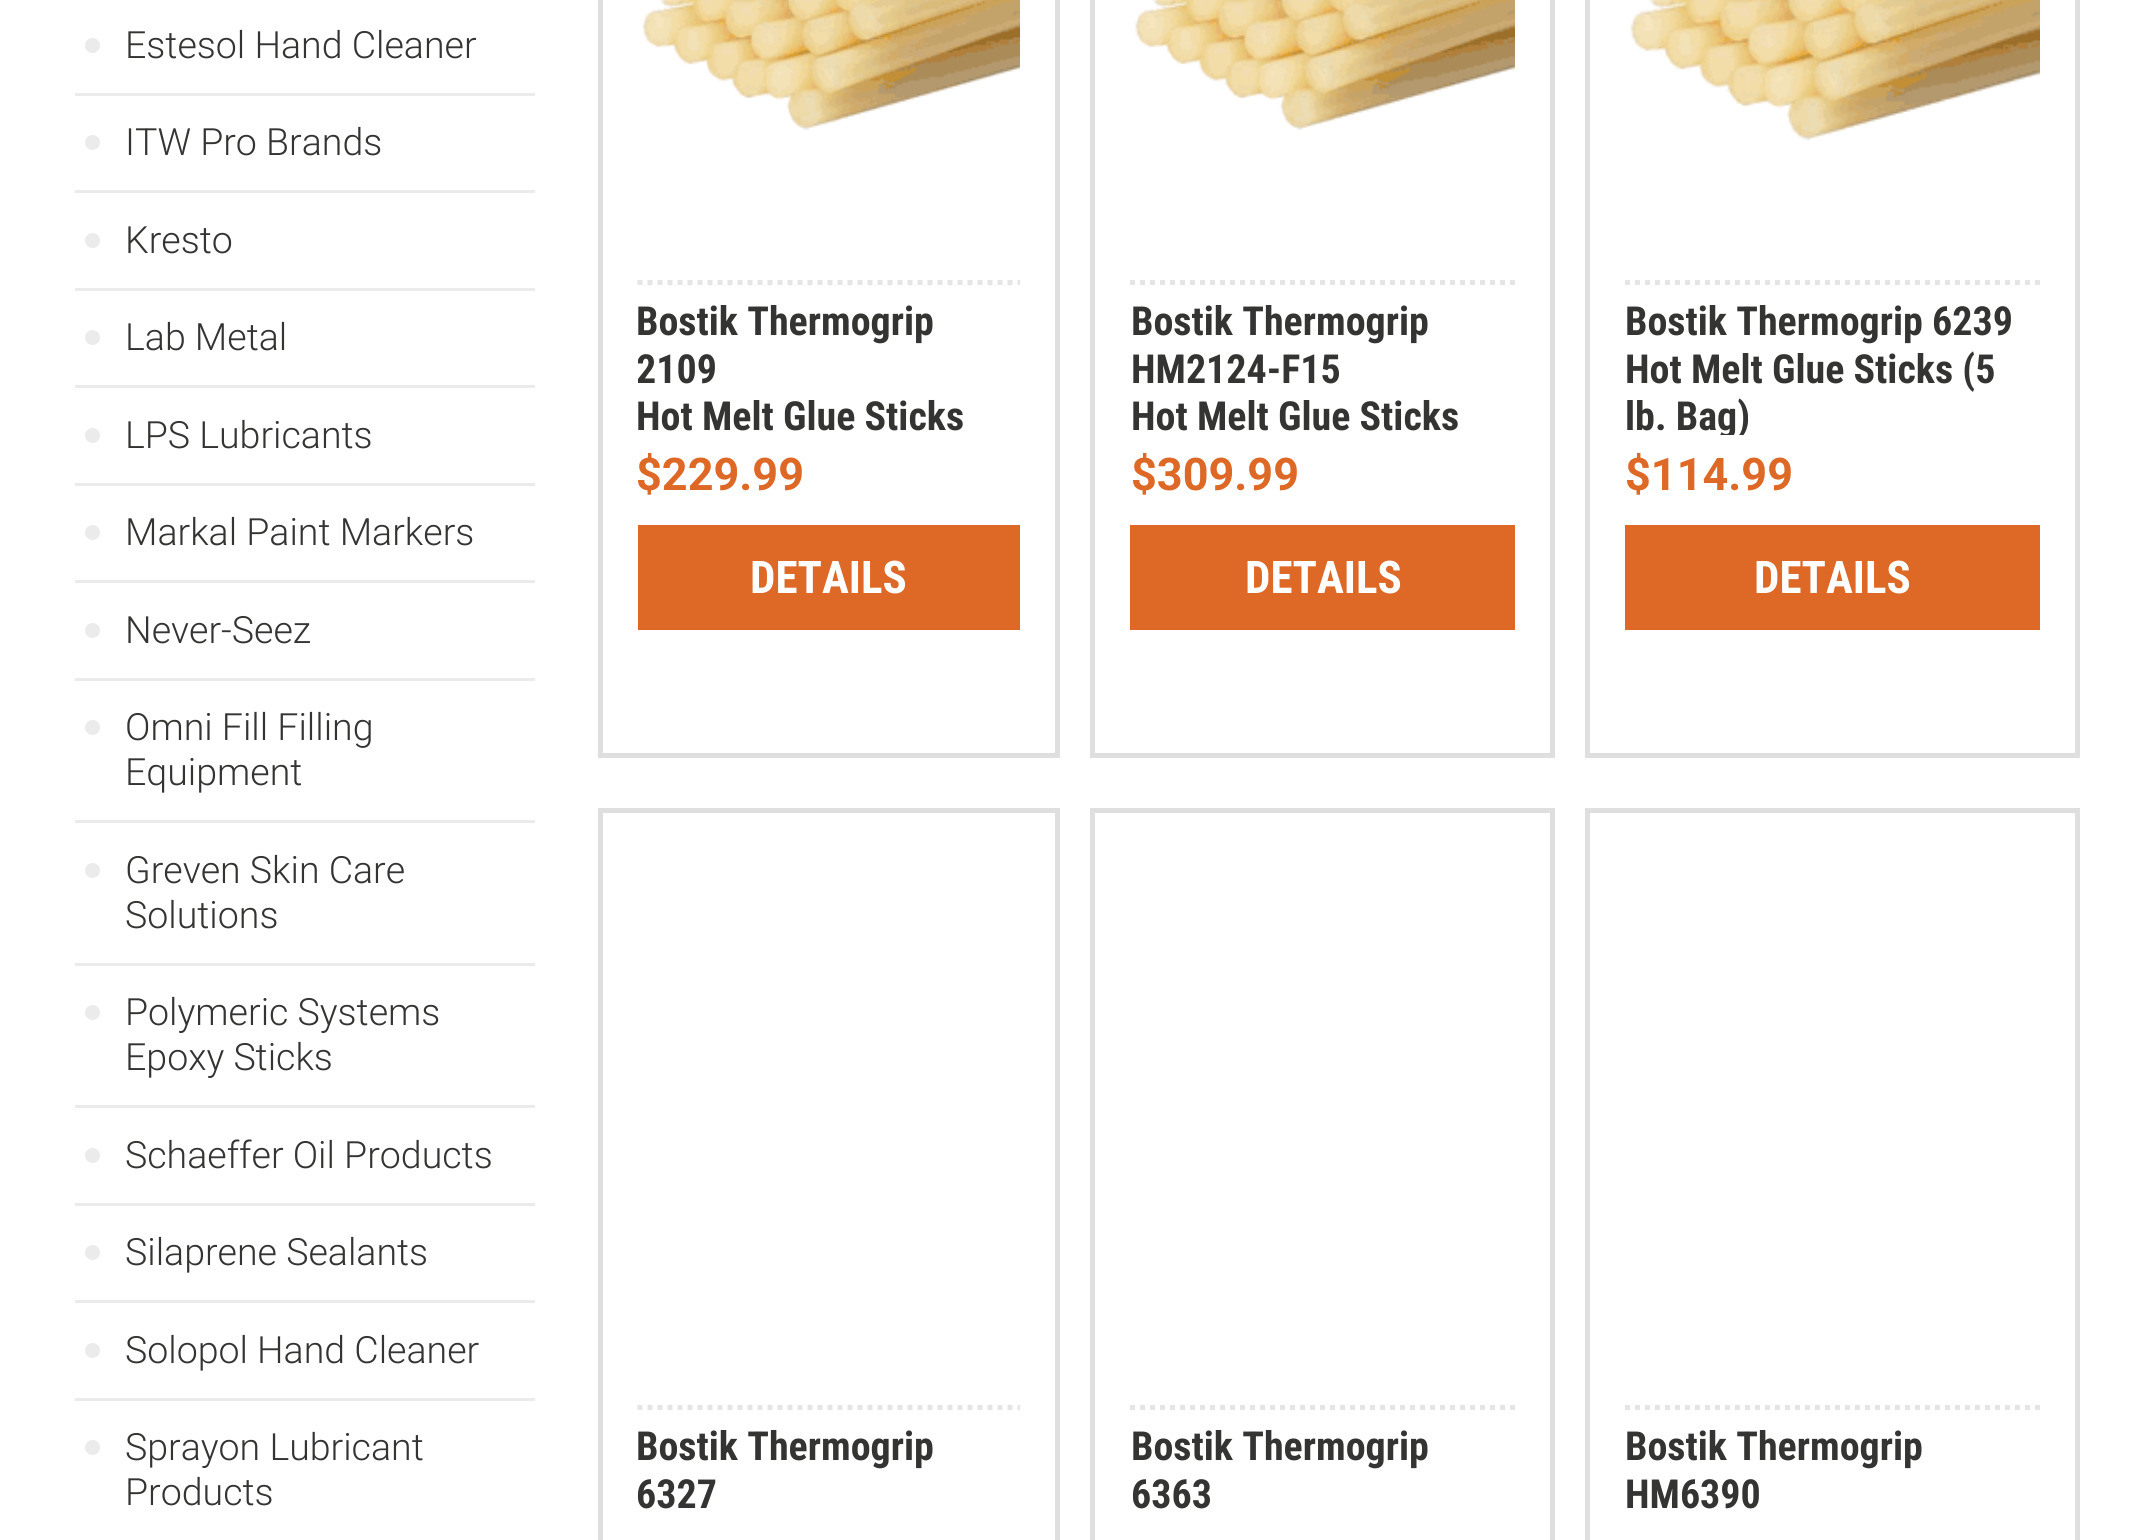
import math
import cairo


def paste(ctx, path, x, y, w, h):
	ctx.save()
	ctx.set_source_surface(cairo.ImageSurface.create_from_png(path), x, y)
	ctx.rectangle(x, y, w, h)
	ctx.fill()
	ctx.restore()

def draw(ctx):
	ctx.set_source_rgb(1, 1, 1)
	ctx.paint()
	ctx.set_source_rgb(0.918, 0.918, 0.918)
	ctx.rectangle(75, 93, 460, 3)
	ctx.fill()
	ctx.arc(92.5, 45.5, 7.5, 0, 2 * math.pi)
	ctx.fill()
	ctx.select_font_face('Roboto Light')
	ctx.set_font_size(37.5)
	ctx.set_source_rgb(0.204, 0.204, 0.2)
	ctx.move_to(125, 58)
	ctx.show_text('Estesol Hand Cleaner')
	ctx.set_source_rgb(0.918, 0.918, 0.918)
	ctx.rectangle(75, 190, 460, 3)
	ctx.fill()
	ctx.arc(92.5, 142.5, 7.5, 0, 2 * math.pi)
	ctx.fill()
	ctx.set_source_rgb(0.204, 0.204, 0.2)
	ctx.move_to(125, 155)
	ctx.show_text('ITW Pro Brands')
	ctx.set_source_rgb(0.918, 0.918, 0.918)
	ctx.rectangle(75, 288, 460, 3)
	ctx.fill()
	ctx.arc(92.5, 240.5, 7.5, 0, 2 * math.pi)
	ctx.fill()
	ctx.set_source_rgb(0.204, 0.204, 0.2)
	ctx.move_to(125, 253)
	ctx.show_text('Kresto')
	ctx.set_source_rgb(0.918, 0.918, 0.918)
	ctx.rectangle(75, 385, 460, 3)
	ctx.fill()
	ctx.arc(92.5, 337.5, 7.5, 0, 2 * math.pi)
	ctx.fill()
	ctx.set_source_rgb(0.204, 0.204, 0.2)
	ctx.move_to(125, 350)
	ctx.show_text('Lab Metal')
	ctx.set_source_rgb(0.918, 0.918, 0.918)
	ctx.rectangle(75, 483, 460, 3)
	ctx.fill()
	ctx.arc(92.5, 435.5, 7.5, 0, 2 * math.pi)
	ctx.fill()
	ctx.set_source_rgb(0.204, 0.204, 0.2)
	ctx.move_to(125, 448)
	ctx.show_text('LPS Lubricants')
	ctx.set_source_rgb(0.918, 0.918, 0.918)
	ctx.rectangle(75, 580, 460, 3)
	ctx.fill()
	ctx.arc(92.5, 532.5, 7.5, 0, 2 * math.pi)
	ctx.fill()
	ctx.set_source_rgb(0.204, 0.204, 0.2)
	ctx.move_to(125, 545)
	ctx.show_text('Markal Paint Markers')
	ctx.set_source_rgb(0.918, 0.918, 0.918)
	ctx.rectangle(75, 678, 460, 3)
	ctx.fill()
	ctx.arc(92.5, 630.5, 7.5, 0, 2 * math.pi)
	ctx.fill()
	ctx.set_source_rgb(0.204, 0.204, 0.2)
	ctx.move_to(125, 643)
	ctx.show_text('Never-Seez')
	ctx.set_source_rgb(0.918, 0.918, 0.918)
	ctx.rectangle(75, 820, 460, 3)
	ctx.fill()
	ctx.arc(92.5, 727.5, 7.5, 0, 2 * math.pi)
	ctx.fill()
	ctx.set_source_rgb(0.204, 0.204, 0.2)
	ctx.move_to(125, 740)
	ctx.show_text('Omni Fill Filling')
	ctx.move_to(125, 785)
	ctx.show_text('Equipment')
	ctx.set_source_rgb(0.918, 0.918, 0.918)
	ctx.rectangle(75, 963, 460, 3)
	ctx.fill()
	ctx.arc(92.5, 870.5, 7.5, 0, 2 * math.pi)
	ctx.fill()
	ctx.set_source_rgb(0.204, 0.204, 0.2)
	ctx.move_to(125, 883)
	ctx.show_text('Greven Skin Care')
	ctx.move_to(125, 928)
	ctx.show_text('Solutions')
	ctx.set_source_rgb(0.918, 0.918, 0.918)
	ctx.rectangle(75, 1105, 460, 3)
	ctx.fill()
	ctx.arc(92.5, 1012.5, 7.5, 0, 2 * math.pi)
	ctx.fill()
	ctx.set_source_rgb(0.204, 0.204, 0.2)
	ctx.move_to(125, 1025)
	ctx.show_text('Polymeric Systems')
	ctx.move_to(125, 1070)
	ctx.show_text('Epoxy Sticks')
	ctx.set_source_rgb(0.918, 0.918, 0.918)
	ctx.rectangle(75, 1203, 460, 3)
	ctx.fill()
	ctx.arc(92.5, 1155.5, 7.5, 0, 2 * math.pi)
	ctx.fill()
	ctx.set_source_rgb(0.204, 0.204, 0.2)
	ctx.move_to(125, 1168)
	ctx.show_text('Schaeffer Oil Products')
	ctx.set_source_rgb(0.918, 0.918, 0.918)
	ctx.rectangle(75, 1300, 460, 3)
	ctx.fill()
	ctx.arc(92.5, 1252.5, 7.5, 0, 2 * math.pi)
	ctx.fill()
	ctx.set_source_rgb(0.204, 0.204, 0.2)
	ctx.move_to(125, 1265)
	ctx.show_text('Silaprene Sealants')
	ctx.set_source_rgb(0.918, 0.918, 0.918)
	ctx.rectangle(75, 1398, 460, 3)
	ctx.fill()
	ctx.arc(92.5, 1350.5, 7.5, 0, 2 * math.pi)
	ctx.fill()
	ctx.set_source_rgb(0.204, 0.204, 0.2)
	ctx.move_to(125, 1363)
	ctx.show_text('Solopol Hand Cleaner')
	ctx.set_source_rgb(0.918, 0.918, 0.918)
	ctx.new_path()
	ctx.arc(92.5, 1447.5, 7.5, 0, 2 * math.pi)
	ctx.fill()
	ctx.set_source_rgb(0.204, 0.204, 0.2)
	ctx.move_to(125, 1460)
	ctx.show_text('Sprayon Lubricant')
	ctx.move_to(125, 1505)
	ctx.show_text('Products')
	ctx.rectangle(600.5, -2.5, 457, 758)
	ctx.set_source_rgb(0.875, 0.875, 0.875)
	ctx.set_line_width(5)
	ctx.stroke()
	ctx.new_path()
	ctx.move_to(637.5, 282.5)
	ctx.line_to(1020, 282.5)
	ctx.set_source_rgb(0.898, 0.898, 0.898)
	ctx.set_dash([5, 5])
	ctx.stroke()
	paste(ctx, 'media/1.png', 642, 0, 378, 130)
	ctx.select_font_face('Roboto Condensed', cairo.FONT_SLANT_NORMAL, cairo.FONT_WEIGHT_BOLD)
	ctx.set_font_size(40)
	ctx.set_source_rgb(0.204, 0.204, 0.2)
	ctx.move_to(636, 335)
	ctx.show_text('Bostik Thermogrip')
	ctx.save()
	ctx.rectangle(638, 285, 382, 150)
	ctx.clip()
	ctx.move_to(636, 383)
	ctx.show_text('2109')
	ctx.restore()
	ctx.move_to(636, 430)
	ctx.show_text('Hot Melt Glue Sticks')
	ctx.select_font_face('Roboto', cairo.FONT_SLANT_NORMAL, cairo.FONT_WEIGHT_BOLD)
	ctx.set_font_size(45)
	ctx.set_source_rgb(0.871, 0.408, 0.149)
	ctx.move_to(636, 490)
	ctx.show_text('$229.99')
	ctx.rectangle(638, 525, 382, 105)
	ctx.fill()
	ctx.select_font_face('Roboto Condensed', cairo.FONT_SLANT_NORMAL, cairo.FONT_WEIGHT_BOLD)
	ctx.set_source_rgb(1, 1, 1)
	ctx.move_to(750, 593)
	ctx.show_text('DETAILS')
	ctx.rectangle(1092.5, -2.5, 460, 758)
	ctx.set_source_rgb(0.875, 0.875, 0.875)
	ctx.set_dash([])
	ctx.stroke()
	ctx.new_path()
	ctx.move_to(1130, 282.5)
	ctx.line_to(1515, 282.5)
	ctx.set_source_rgb(0.898, 0.898, 0.898)
	ctx.set_dash([5, 5])
	ctx.stroke()
	paste(ctx, 'media/2.png', 1135, 0, 380, 130)
	ctx.set_font_size(40)
	ctx.set_source_rgb(0.204, 0.204, 0.2)
	for x, y, s in [
		(1131, 335, 'Bostik Thermogrip'),
		(1131, 383, 'HM2124-F15'),
		(1131, 430, 'Hot Melt Glue Sticks'),
	]:
		ctx.move_to(x, y)
		ctx.show_text(s)
	ctx.select_font_face('Roboto', cairo.FONT_SLANT_NORMAL, cairo.FONT_WEIGHT_BOLD)
	ctx.set_font_size(45)
	ctx.set_source_rgb(0.871, 0.408, 0.149)
	ctx.move_to(1131, 490)
	ctx.show_text('$309.99')
	ctx.rectangle(1130, 525, 385, 105)
	ctx.fill()
	ctx.select_font_face('Roboto Condensed', cairo.FONT_SLANT_NORMAL, cairo.FONT_WEIGHT_BOLD)
	ctx.set_source_rgb(1, 1, 1)
	ctx.move_to(1245, 593)
	ctx.show_text('DETAILS')
	ctx.rectangle(1587.5, -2.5, 490, 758)
	ctx.set_source_rgb(0.875, 0.875, 0.875)
	ctx.set_dash([])
	ctx.stroke()
	ctx.new_path()
	ctx.move_to(1625, 282.5)
	ctx.line_to(2040, 282.5)
	ctx.set_source_rgb(0.898, 0.898, 0.898)
	ctx.set_dash([5, 5])
	ctx.stroke()
	paste(ctx, 'media/3.png', 1630, 0, 410, 141)
	ctx.set_font_size(40)
	ctx.set_source_rgb(0.204, 0.204, 0.2)
	ctx.move_to(1625, 335)
	ctx.show_text('Bostik Thermogrip 6239')
	ctx.move_to(1625, 383)
	ctx.show_text('Hot Melt Glue Sticks (5')
	ctx.save()
	ctx.rectangle(1625, 285, 415, 150)
	ctx.clip()
	ctx.move_to(1625, 430)
	ctx.show_text('lb. Bag)')
	ctx.restore()
	ctx.select_font_face('Roboto', cairo.FONT_SLANT_NORMAL, cairo.FONT_WEIGHT_BOLD)
	ctx.set_font_size(45)
	ctx.set_source_rgb(0.871, 0.408, 0.149)
	ctx.move_to(1625, 490)
	ctx.show_text('$114.99')
	ctx.rectangle(1625, 525, 415, 105)
	ctx.fill()
	ctx.select_font_face('Roboto Condensed', cairo.FONT_SLANT_NORMAL, cairo.FONT_WEIGHT_BOLD)
	ctx.set_source_rgb(1, 1, 1)
	ctx.move_to(1754, 593)
	ctx.show_text('DETAILS')
	ctx.rectangle(600.5, 810.5, 457, 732)
	ctx.set_source_rgb(0.875, 0.875, 0.875)
	ctx.set_dash([])
	ctx.stroke()
	ctx.new_path()
	ctx.move_to(637.5, 1407.5)
	ctx.line_to(1020, 1407.5)
	ctx.set_source_rgb(0.898, 0.898, 0.898)
	ctx.set_dash([5, 5])
	ctx.stroke()
	ctx.set_font_size(40)
	ctx.set_source_rgb(0.204, 0.204, 0.2)
	ctx.move_to(636, 1460)
	ctx.show_text('Bostik Thermogrip')
	ctx.move_to(636, 1508)
	ctx.show_text('6327')
	ctx.rectangle(1092.5, 810.5, 460, 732)
	ctx.set_source_rgb(0.875, 0.875, 0.875)
	ctx.set_dash([])
	ctx.stroke()
	ctx.new_path()
	ctx.move_to(1130, 1407.5)
	ctx.line_to(1515, 1407.5)
	ctx.set_source_rgb(0.898, 0.898, 0.898)
	ctx.set_dash([5, 5])
	ctx.stroke()
	ctx.set_source_rgb(0.204, 0.204, 0.2)
	ctx.move_to(1131, 1460)
	ctx.show_text('Bostik Thermogrip')
	ctx.move_to(1131, 1508)
	ctx.show_text('6363')
	ctx.rectangle(1587.5, 810.5, 490, 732)
	ctx.set_source_rgb(0.875, 0.875, 0.875)
	ctx.set_dash([])
	ctx.stroke()
	ctx.new_path()
	ctx.move_to(1625, 1407.5)
	ctx.line_to(2040, 1407.5)
	ctx.set_source_rgb(0.898, 0.898, 0.898)
	ctx.set_dash([5, 5])
	ctx.stroke()
	ctx.set_source_rgb(0.204, 0.204, 0.2)
	ctx.move_to(1625, 1460)
	ctx.show_text('Bostik Thermogrip')
	ctx.move_to(1625, 1508)
	ctx.show_text('HM6390')


surface = cairo.ImageSurface(cairo.FORMAT_RGB24, 2155, 1540)
ctx = cairo.Context(surface)
options = cairo.FontOptions()
options.set_hint_metrics(cairo.HINT_METRICS_OFF)
options.set_hint_style(cairo.HINT_STYLE_NONE)
ctx.set_font_options(options)
ctx.set_miter_limit(4)
draw(ctx)
surface.write_to_png('image.png')
